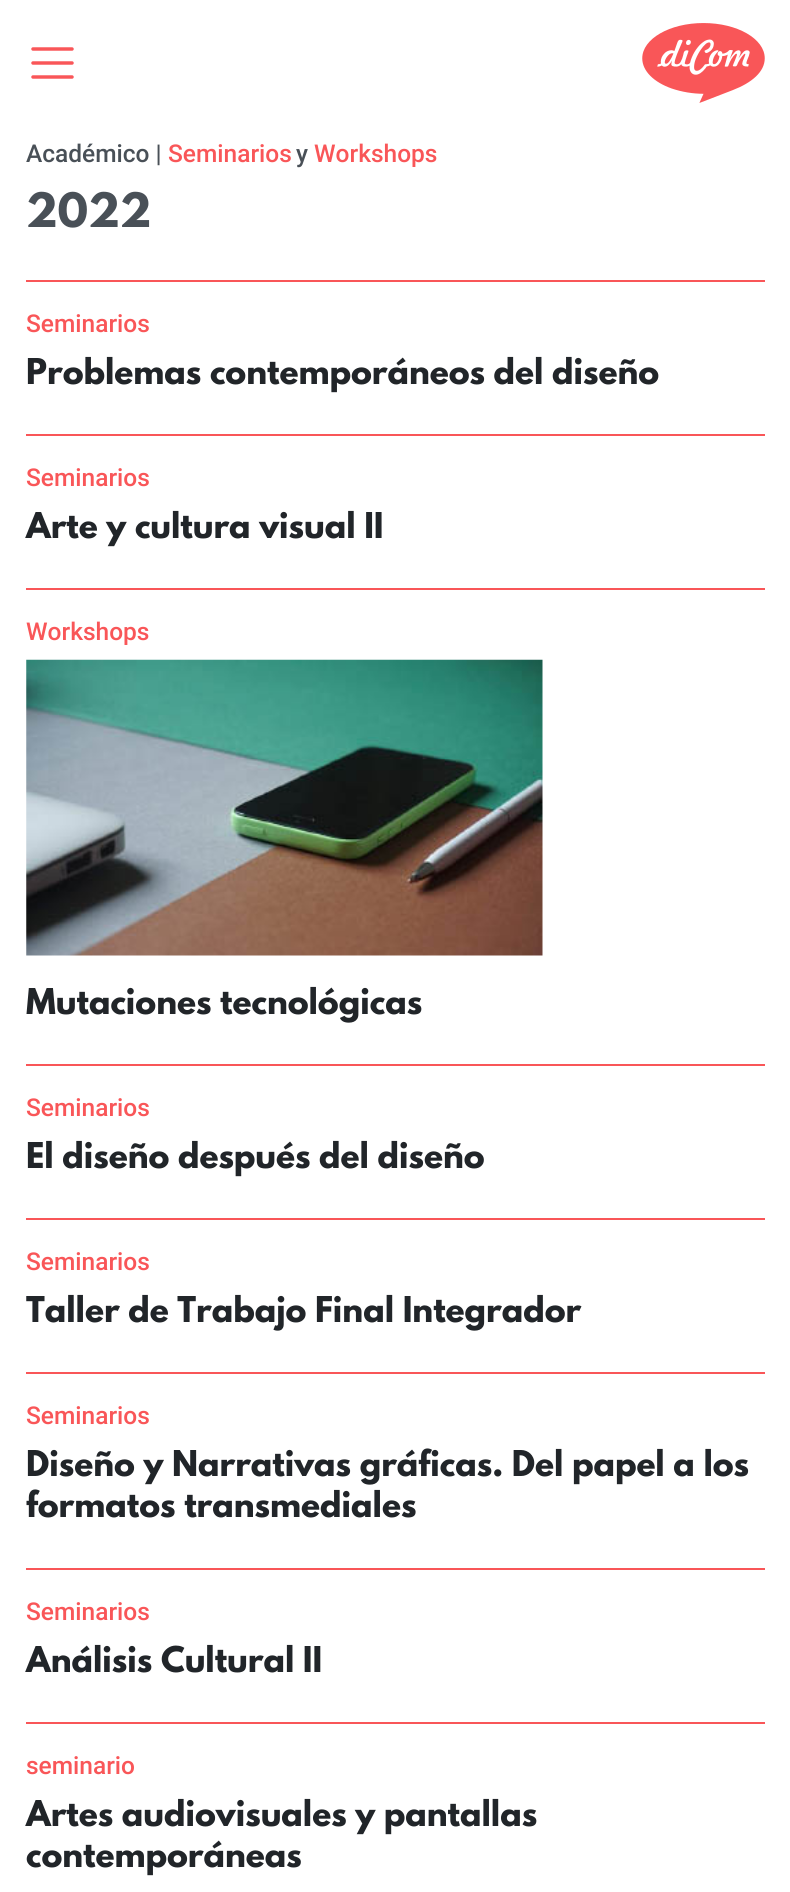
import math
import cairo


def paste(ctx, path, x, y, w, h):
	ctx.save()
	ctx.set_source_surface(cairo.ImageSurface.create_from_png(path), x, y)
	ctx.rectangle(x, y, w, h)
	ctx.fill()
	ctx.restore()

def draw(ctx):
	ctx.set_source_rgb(1, 1, 1)
	ctx.paint()
	ctx.new_path()
	ctx.move_to(33, 49)
	ctx.line_to(72, 49)
	ctx.move_to(33, 63)
	ctx.line_to(72, 63)
	ctx.move_to(33, 77)
	ctx.line_to(72, 77)
	ctx.set_source_rgb(0.976, 0.337, 0.345)
	ctx.set_line_width(3.5)
	ctx.set_line_cap(cairo.LINE_CAP_ROUND)
	ctx.stroke()
	paste(ctx, 'media/1.png', 642, 23, 123, 80)
	ctx.select_font_face('Roboto Medium')
	ctx.set_font_size(24.5)
	ctx.set_source_rgb(0.286, 0.314, 0.341)
	ctx.move_to(26, 162)
	ctx.show_text('Académico |')
	ctx.set_source_rgb(0.976, 0.337, 0.345)
	ctx.move_to(168, 162)
	ctx.show_text('Seminarios')
	ctx.set_source_rgb(0.286, 0.314, 0.341)
	ctx.move_to(296, 162)
	ctx.show_text('y')
	ctx.set_source_rgb(0.976, 0.337, 0.345)
	ctx.move_to(314, 162)
	ctx.show_text('Workshops')
	ctx.select_font_face('League Spartan', cairo.FONT_SLANT_NORMAL, cairo.FONT_WEIGHT_BOLD)
	ctx.set_font_size(42)
	ctx.set_source_rgb(0.286, 0.314, 0.341)
	ctx.move_to(26, 227)
	ctx.show_text('2022')
	ctx.set_source_rgb(0.976, 0.337, 0.345)
	ctx.rectangle(26, 280, 739, 2)
	ctx.fill()
	ctx.select_font_face('Roboto Medium')
	ctx.set_font_size(24.5)
	ctx.move_to(26, 332)
	ctx.show_text('Seminarios')
	ctx.select_font_face('League Spartan', cairo.FONT_SLANT_NORMAL, cairo.FONT_WEIGHT_BOLD)
	ctx.set_font_size(31.5)
	ctx.set_source_rgb(0.129, 0.145, 0.161)
	ctx.move_to(26, 384)
	ctx.show_text('Problemas contemporáneos del diseño')
	ctx.set_source_rgb(0.976, 0.337, 0.345)
	ctx.rectangle(26, 434, 739, 2)
	ctx.fill()
	ctx.select_font_face('Roboto Medium')
	ctx.set_font_size(24.5)
	ctx.move_to(26, 486)
	ctx.show_text('Seminarios')
	ctx.select_font_face('League Spartan', cairo.FONT_SLANT_NORMAL, cairo.FONT_WEIGHT_BOLD)
	ctx.set_font_size(31.5)
	ctx.set_source_rgb(0.129, 0.145, 0.161)
	ctx.move_to(26, 538)
	ctx.show_text('Arte y cultura visual II')
	ctx.set_source_rgb(0.976, 0.337, 0.345)
	ctx.rectangle(26, 588, 739, 2)
	ctx.fill()
	ctx.select_font_face('Roboto Medium')
	ctx.set_font_size(24.5)
	ctx.move_to(26, 640)
	ctx.show_text('Workshops')
	paste(ctx, 'media/2.png', 26, 659, 517, 297)
	ctx.select_font_face('League Spartan', cairo.FONT_SLANT_NORMAL, cairo.FONT_WEIGHT_BOLD)
	ctx.set_font_size(31.5)
	ctx.set_source_rgb(0.129, 0.145, 0.161)
	ctx.move_to(26, 1014)
	ctx.show_text('Mutaciones tecnológicas')
	ctx.set_source_rgb(0.976, 0.337, 0.345)
	ctx.rectangle(26, 1064, 739, 2)
	ctx.fill()
	ctx.select_font_face('Roboto Medium')
	ctx.set_font_size(24.5)
	ctx.move_to(26, 1116)
	ctx.show_text('Seminarios')
	ctx.select_font_face('League Spartan', cairo.FONT_SLANT_NORMAL, cairo.FONT_WEIGHT_BOLD)
	ctx.set_font_size(31.5)
	ctx.set_source_rgb(0.129, 0.145, 0.161)
	ctx.move_to(26, 1168)
	ctx.show_text('El diseño después del diseño')
	ctx.set_source_rgb(0.976, 0.337, 0.345)
	ctx.rectangle(26, 1218, 739, 2)
	ctx.fill()
	ctx.select_font_face('Roboto Medium')
	ctx.set_font_size(24.5)
	ctx.move_to(26, 1270)
	ctx.show_text('Seminarios')
	ctx.select_font_face('League Spartan', cairo.FONT_SLANT_NORMAL, cairo.FONT_WEIGHT_BOLD)
	ctx.set_font_size(31.5)
	ctx.set_source_rgb(0.129, 0.145, 0.161)
	ctx.move_to(26, 1322)
	ctx.show_text('Taller de Trabajo Final Integrador')
	ctx.set_source_rgb(0.976, 0.337, 0.345)
	ctx.rectangle(26, 1372, 739, 2)
	ctx.fill()
	ctx.select_font_face('Roboto Medium')
	ctx.set_font_size(24.5)
	ctx.move_to(26, 1424)
	ctx.show_text('Seminarios')
	ctx.select_font_face('League Spartan', cairo.FONT_SLANT_NORMAL, cairo.FONT_WEIGHT_BOLD)
	ctx.set_font_size(31.5)
	ctx.set_source_rgb(0.129, 0.145, 0.161)
	ctx.move_to(26, 1476)
	ctx.show_text('Diseño y Narrativas gráficas. Del papel a los')
	ctx.move_to(26, 1517)
	ctx.show_text('formatos transmediales')
	ctx.set_source_rgb(0.976, 0.337, 0.345)
	ctx.rectangle(26, 1568, 739, 2)
	ctx.fill()
	ctx.select_font_face('Roboto Medium')
	ctx.set_font_size(24.5)
	ctx.move_to(26, 1620)
	ctx.show_text('Seminarios')
	ctx.select_font_face('League Spartan', cairo.FONT_SLANT_NORMAL, cairo.FONT_WEIGHT_BOLD)
	ctx.set_font_size(31.5)
	ctx.set_source_rgb(0.129, 0.145, 0.161)
	ctx.move_to(26, 1672)
	ctx.show_text('Análisis Cultural II')
	ctx.set_source_rgb(0.976, 0.337, 0.345)
	ctx.rectangle(26, 1722, 739, 2)
	ctx.fill()
	ctx.select_font_face('Roboto Medium')
	ctx.set_font_size(24.5)
	ctx.move_to(26, 1774)
	ctx.show_text('seminario')
	ctx.select_font_face('League Spartan', cairo.FONT_SLANT_NORMAL, cairo.FONT_WEIGHT_BOLD)
	ctx.set_font_size(31.5)
	ctx.set_source_rgb(0.129, 0.145, 0.161)
	ctx.move_to(26, 1826)
	ctx.show_text('Artes audiovisuales y pantallas')
	ctx.move_to(26, 1867)
	ctx.show_text('contemporáneas')


surface = cairo.ImageSurface(cairo.FORMAT_RGB24, 790, 1892)
ctx = cairo.Context(surface)
options = cairo.FontOptions()
options.set_hint_metrics(cairo.HINT_METRICS_OFF)
options.set_hint_style(cairo.HINT_STYLE_NONE)
ctx.set_font_options(options)
ctx.set_miter_limit(4)
draw(ctx)
surface.write_to_png('image.png')
